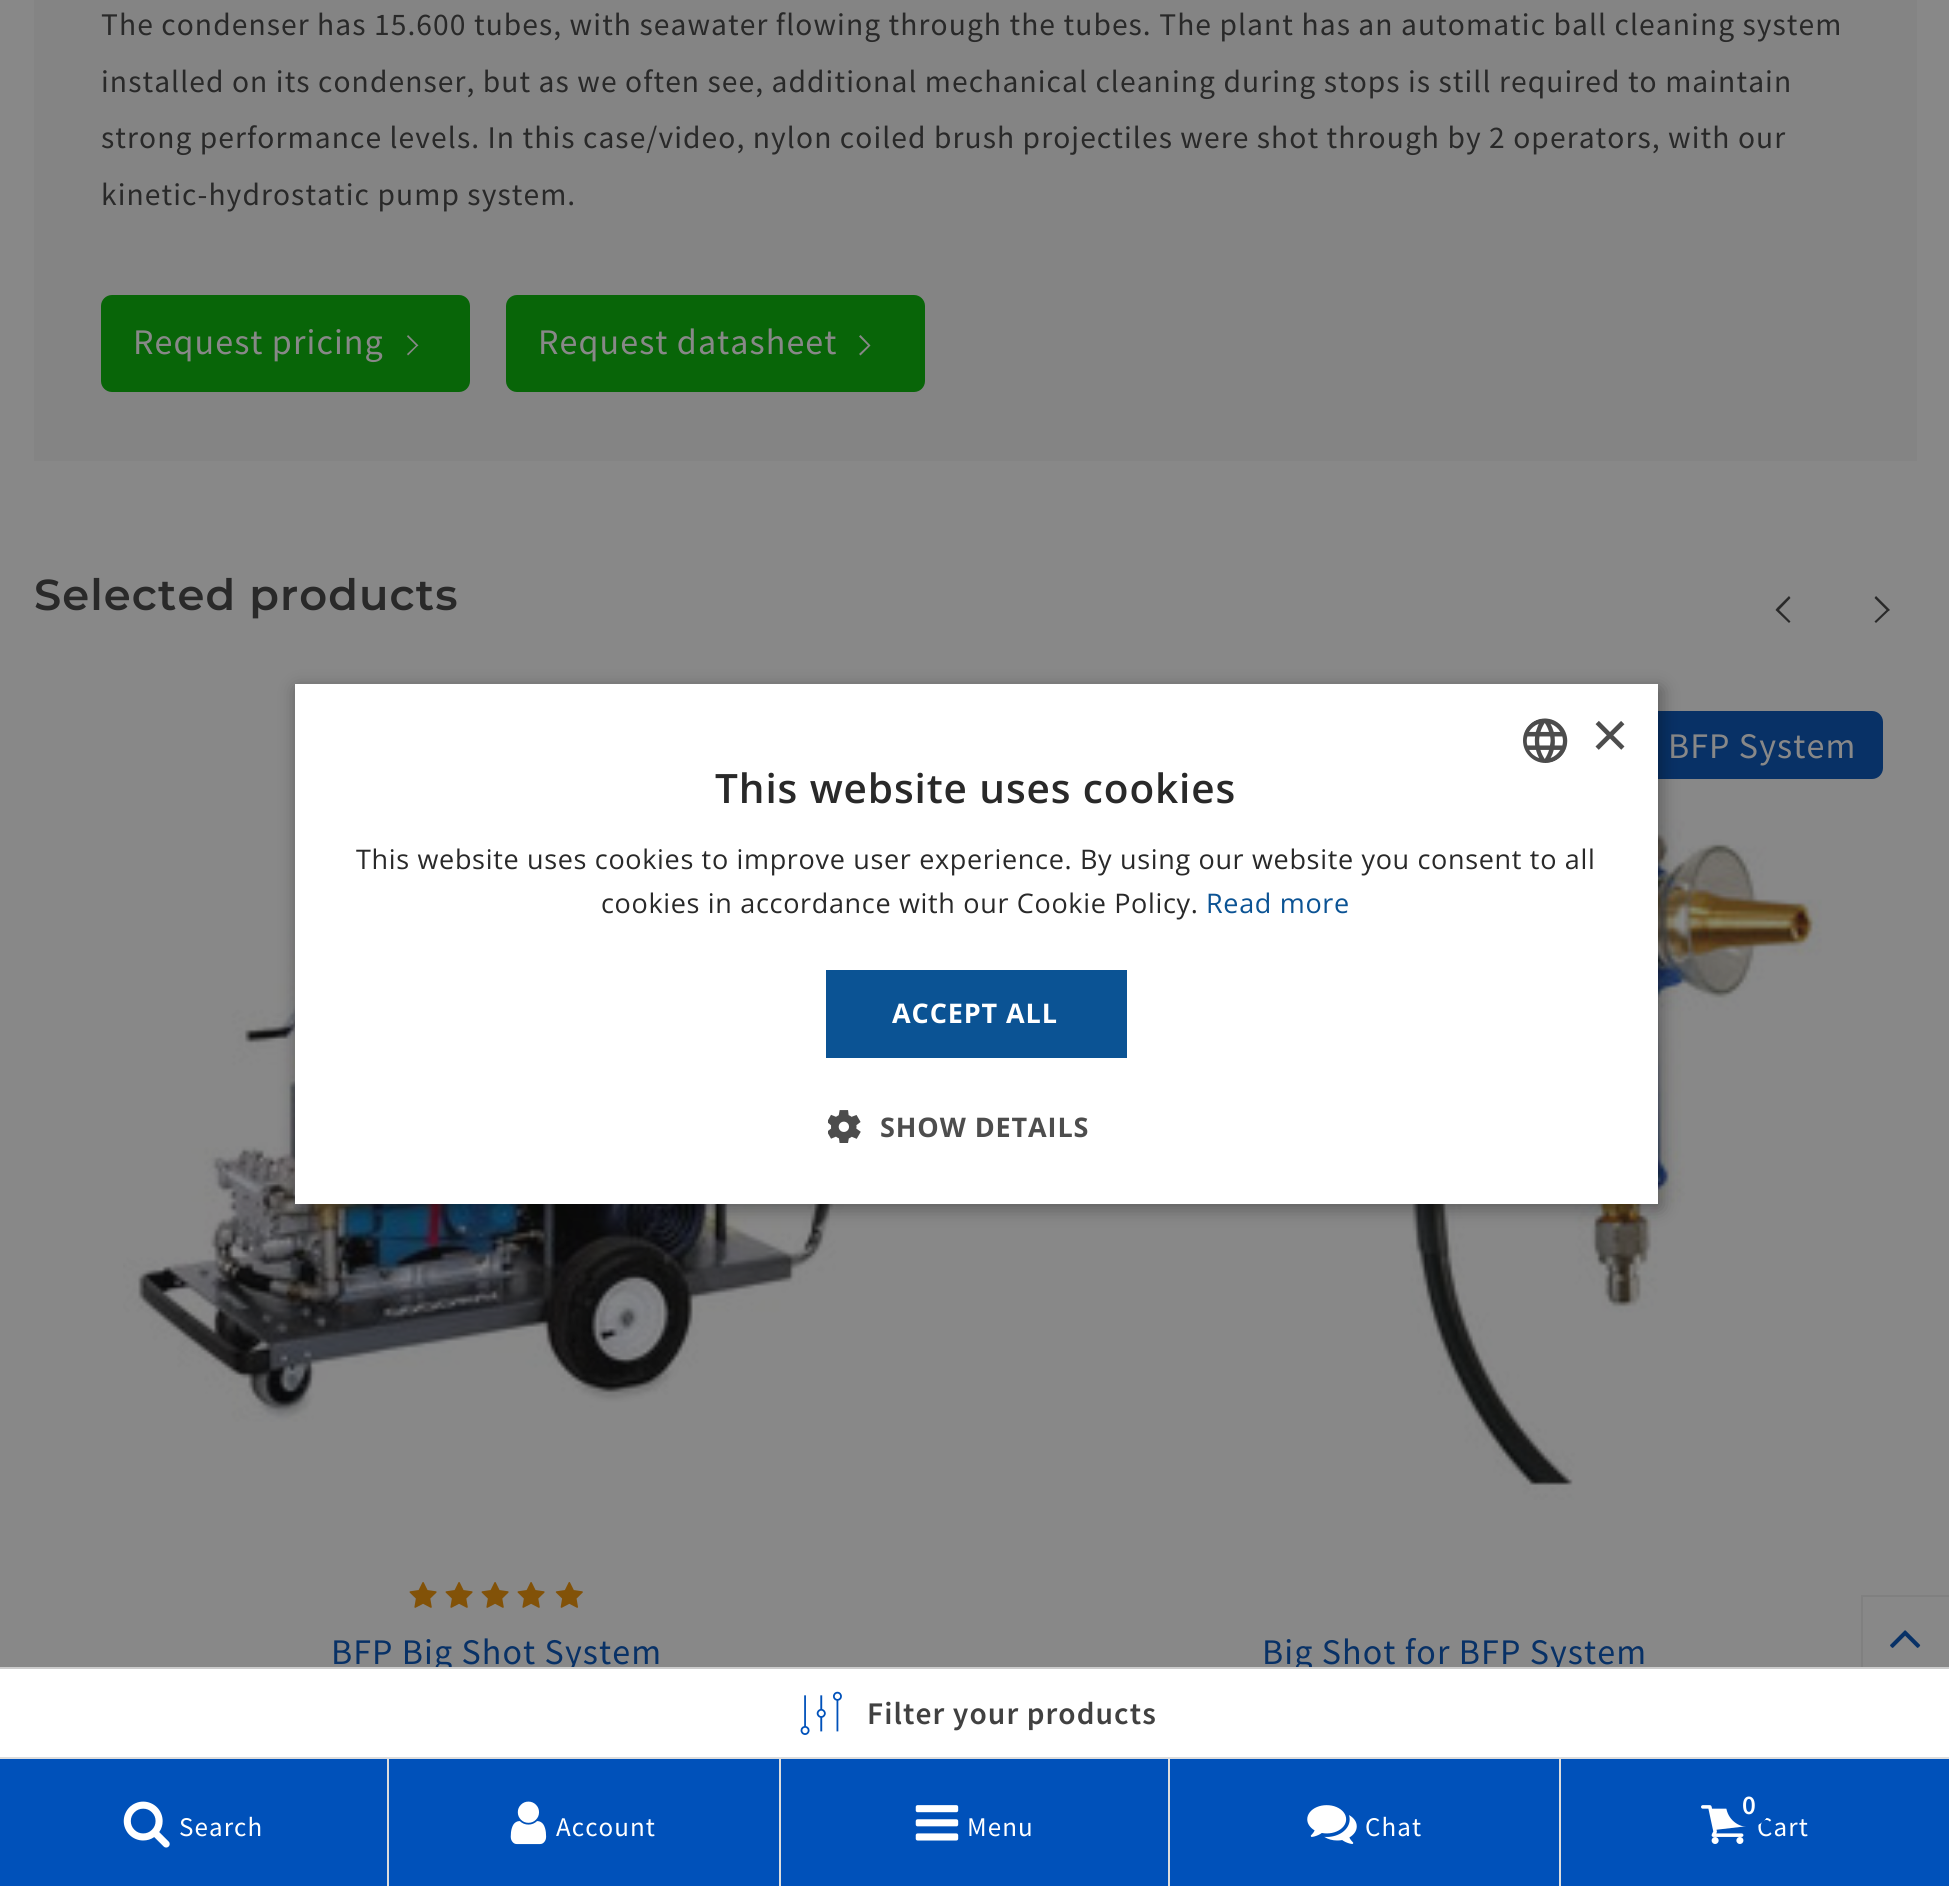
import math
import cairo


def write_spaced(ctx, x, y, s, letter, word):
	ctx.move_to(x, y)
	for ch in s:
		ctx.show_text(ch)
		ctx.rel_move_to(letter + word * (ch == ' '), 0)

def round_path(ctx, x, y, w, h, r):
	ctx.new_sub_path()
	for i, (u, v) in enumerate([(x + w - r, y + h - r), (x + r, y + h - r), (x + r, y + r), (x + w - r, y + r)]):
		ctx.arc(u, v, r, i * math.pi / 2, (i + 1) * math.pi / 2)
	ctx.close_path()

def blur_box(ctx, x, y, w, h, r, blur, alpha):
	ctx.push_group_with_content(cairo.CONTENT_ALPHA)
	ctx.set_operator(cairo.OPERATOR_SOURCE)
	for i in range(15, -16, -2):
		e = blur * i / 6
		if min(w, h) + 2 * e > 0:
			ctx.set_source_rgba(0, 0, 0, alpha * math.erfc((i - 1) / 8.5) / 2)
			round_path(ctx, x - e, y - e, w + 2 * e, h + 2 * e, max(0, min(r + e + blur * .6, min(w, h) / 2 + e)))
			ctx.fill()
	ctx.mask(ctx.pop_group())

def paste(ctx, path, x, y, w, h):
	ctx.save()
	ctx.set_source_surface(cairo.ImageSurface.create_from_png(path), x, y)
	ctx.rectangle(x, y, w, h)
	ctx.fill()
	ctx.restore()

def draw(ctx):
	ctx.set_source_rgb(0.533, 0.533, 0.533)
	ctx.paint()
	ctx.set_source_rgb(0.518, 0.518, 0.518)
	ctx.rectangle(34, 0, 1883, 461)
	ctx.fill()
	ctx.select_font_face('Source Sans Pro')
	ctx.set_font_size(31.5)
	ctx.set_source_rgb(0.161, 0.161, 0.161)
	for x, y, s in [
		(101, 35, 'The condenser has 15.600 tubes, with seawater flowing through the tubes. The plant has an automatic ball cleaning system'),
		(101, 92, 'installed on its condenser, but as we often see, additional mechanical cleaning during stops is still required to maintain'),
		(101, 148, 'strong performance levels. In this case/video, nylon coiled brush projectiles were shot through by 2 operators, with our'),
		(101, 205, 'kinetic-hydrostatic pump system.'),
	]:
		write_spaced(ctx, x, y, s, 1.08, 0)
	ctx.set_source_rgb(0.035, 0.396, 0.035)
	round_path(ctx, 103.5, 297.5, 364, 92, 8.5)
	ctx.fill_preserve()
	ctx.set_line_width(5)
	ctx.stroke()
	ctx.set_font_size(36)
	ctx.set_source_rgb(0.533, 0.533, 0.533)
	write_spaced(ctx, 133, 354, 'Request pricing', 1.08, 0)
	ctx.new_path()
	ctx.move_to(417, 346.5)
	ctx.line_to(418.5, 345.5)
	ctx.line_to(408, 335)
	ctx.line_to(407, 336.5)
	ctx.line_to(416, 345.5)
	ctx.line_to(407, 354)
	ctx.line_to(408, 355.5)
	ctx.close_path()
	ctx.fill()
	ctx.set_source_rgb(0.035, 0.396, 0.035)
	round_path(ctx, 508.5, 297.5, 414, 92, 8.5)
	ctx.fill_preserve()
	ctx.stroke()
	ctx.set_source_rgb(0.533, 0.533, 0.533)
	write_spaced(ctx, 538, 354, 'Request datasheet', 1.08, 0)
	ctx.new_path()
	ctx.move_to(869.5, 346.5)
	ctx.line_to(870.5, 345.5)
	ctx.line_to(860.5, 335)
	ctx.line_to(859, 336.5)
	ctx.line_to(868, 345.5)
	ctx.line_to(859, 354)
	ctx.line_to(860.5, 355.5)
	ctx.close_path()
	ctx.fill()
	ctx.select_font_face('Montserrat SemiBold')
	ctx.set_font_size(43.25)
	ctx.set_source_rgb(0.161, 0.161, 0.161)
	write_spaced(ctx, 34, 610, 'Selected products', 1.08, 0)
	ctx.new_path()
	ctx.move_to(1777, 608)
	ctx.line_to(1775.5, 610)
	ctx.line_to(1789, 623)
	ctx.line_to(1790.5, 621.5)
	ctx.line_to(1779, 610)
	ctx.line_to(1790.5, 598)
	ctx.line_to(1789, 596)
	ctx.close_path()
	ctx.fill()
	ctx.new_path()
	ctx.move_to(1888, 611.5)
	ctx.line_to(1890, 610)
	ctx.line_to(1876, 596)
	ctx.line_to(1874.5, 598)
	ctx.line_to(1886.5, 610)
	ctx.line_to(1874.5, 621.5)
	ctx.line_to(1876, 623)
	ctx.close_path()
	ctx.fill()
	paste(ctx, 'media/1.png', 123, 826, 787, 596)
	paste(ctx, 'media/2.png', 409, 1582, 28, 26)
	paste(ctx, 'media/2.png', 445, 1582, 28, 26)
	paste(ctx, 'media/2.png', 481, 1582, 28, 26)
	paste(ctx, 'media/2.png', 517, 1582, 28, 26)
	paste(ctx, 'media/3.png', 555, 1582, 28, 26)
	ctx.select_font_face('Source Sans Pro')
	ctx.set_font_size(36)
	ctx.set_source_rgb(0.035, 0.192, 0.4)
	write_spaced(ctx, 331, 1664, 'BFP Big Shot System', 1.08, 0)
	round_path(ctx, 1494, 711, 389, 68, 11)
	ctx.fill()
	ctx.set_source_rgb(0.533, 0.533, 0.533)
	write_spaced(ctx, 1668, 758, 'BFP System', 1.08, 0)
	paste(ctx, 'media/4.png', 1054, 817, 768, 683)
	ctx.set_source_rgb(0.035, 0.192, 0.4)
	write_spaced(ctx, 1262, 1664, 'Big Shot for BFP System', 1.08, 0)
	ctx.rectangle(1862, 1596, 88, 88)
	ctx.set_source_rgb(0.502, 0.502, 0.502)
	ctx.set_line_width(2)
	ctx.stroke()
	paste(ctx, 'media/5.png', 1890, 1630, 31, 18)
	ctx.set_source_rgb(0, 0, 0)
	blur_box(ctx, 297, 689, 1364, 519, 0, 9, 0.35)
	ctx.set_source_rgb(1, 1, 1)
	ctx.rectangle(295, 684, 1363, 520)
	ctx.fill()
	paste(ctx, 'media/6.png', 1523, 718, 45, 45)
	ctx.select_font_face('Liberation Sans')
	ctx.set_font_size(65)
	ctx.set_source_rgb(0.302, 0.302, 0.302)
	ctx.move_to(1591, 757)
	ctx.show_text('×')
	ctx.select_font_face('Open Sans SemiBold')
	ctx.set_font_size(40.5)
	ctx.set_source_rgb(0.161, 0.161, 0.161)
	write_spaced(ctx, 715, 803, 'This website uses cookies', 0.9, 0)
	ctx.select_font_face('Open Sans')
	ctx.set_font_size(27)
	write_spaced(ctx, 356, 869, 'This website uses cookies to improve user experience. By using our website you consent to all', 0.67, 0)
	write_spaced(ctx, 601, 913, 'cookies in accordance with our Cookie Policy.', 0.67, 0)
	ctx.set_source_rgb(0.043, 0.325, 0.58)
	write_spaced(ctx, 1206, 913, 'Read more', 0.67, 0)
	ctx.rectangle(826, 970, 301, 88)
	ctx.fill()
	ctx.select_font_face('Open Sans', cairo.FONT_SLANT_NORMAL, cairo.FONT_WEIGHT_BOLD)
	ctx.set_source_rgb(1, 1, 1)
	write_spaced(ctx, 892, 1023, 'ACCEPT ALL', 0.9, 0)
	paste(ctx, 'media/7.png', 828, 1110, 33, 33)
	ctx.set_source_rgb(0.302, 0.302, 0.302)
	write_spaced(ctx, 880, 1137, 'SHOW DETAILS', 0.9, 0)
	ctx.set_source_rgb(1, 1, 1)
	ctx.rectangle(0, 1669, 1949, 88)
	ctx.fill()
	ctx.set_source_rgb(0.8, 0.8, 0.8)
	ctx.rectangle(0, 1667, 1949, 2)
	ctx.fill()
	paste(ctx, 'media/8.png', 800, 1691, 42, 44)
	ctx.select_font_face('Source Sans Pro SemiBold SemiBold')
	ctx.set_font_size(31.5)
	ctx.set_source_rgb(0.255, 0.255, 0.255)
	write_spaced(ctx, 867, 1724, 'Filter your products', 1.08, 0)
	ctx.set_source_rgb(0, 0.318, 0.729)
	ctx.rectangle(0, 1759, 387, 127)
	ctx.fill()
	ctx.set_source_rgb(0.867, 0.867, 0.867)
	ctx.rectangle(0, 1757, 1949, 2)
	ctx.rectangle(387, 1757, 2, 129)
	ctx.fill()
	paste(ctx, 'media/9.png', 123, 1801, 47, 47)
	ctx.select_font_face('Source Sans Pro')
	ctx.set_font_size(27)
	ctx.set_source_rgb(1, 1, 1)
	write_spaced(ctx, 179, 1836, 'Search', 1.08, 0)
	ctx.set_source_rgb(0, 0.318, 0.729)
	ctx.rectangle(389, 1759, 390, 127)
	ctx.fill()
	ctx.set_source_rgb(0.867, 0.867, 0.867)
	ctx.rectangle(779, 1757, 2, 129)
	ctx.fill()
	paste(ctx, 'media/10.png', 510, 1801, 37, 44)
	ctx.set_source_rgb(1, 1, 1)
	write_spaced(ctx, 556, 1836, 'Account', 1.08, 0)
	ctx.set_source_rgb(0, 0.318, 0.729)
	ctx.rectangle(781, 1759, 387, 127)
	ctx.fill()
	ctx.set_source_rgb(0.867, 0.867, 0.867)
	ctx.rectangle(1168, 1757, 2, 129)
	ctx.fill()
	paste(ctx, 'media/11.png', 915, 1805, 44, 36)
	ctx.set_source_rgb(1, 1, 1)
	write_spaced(ctx, 967, 1836, 'Menu', 1.08, 0)
	ctx.set_source_rgb(0, 0.318, 0.729)
	ctx.rectangle(1170, 1759, 779, 127)
	ctx.fill()
	ctx.set_source_rgb(0.867, 0.867, 0.867)
	ctx.rectangle(1559, 1757, 2, 129)
	ctx.fill()
	paste(ctx, 'media/12.png', 1307, 1805, 50, 39)
	ctx.set_source_rgb(1, 1, 1)
	write_spaced(ctx, 1365, 1836, 'Chat', 1.08, 0)
	paste(ctx, 'media/13.png', 1701, 1805, 45, 39)
	write_spaced(ctx, 1757, 1836, 'Cart', 1.08, 0)
	ctx.set_source_rgb(0, 0.318, 0.729)
	ctx.new_path()
	ctx.arc(1748.5, 1804.5, 22.5, 0, 2 * math.pi)
	ctx.fill()
	ctx.select_font_face('Source Sans Pro SemiBold SemiBold')
	ctx.set_source_rgb(1, 1, 1)
	write_spaced(ctx, 1742, 1814, '0', 1.08, 0)


surface = cairo.ImageSurface(cairo.FORMAT_RGB24, 1949, 1886)
ctx = cairo.Context(surface)
options = cairo.FontOptions()
options.set_hint_metrics(cairo.HINT_METRICS_OFF)
options.set_hint_style(cairo.HINT_STYLE_NONE)
ctx.set_font_options(options)
ctx.set_miter_limit(4)
draw(ctx)
surface.write_to_png('image.png')
